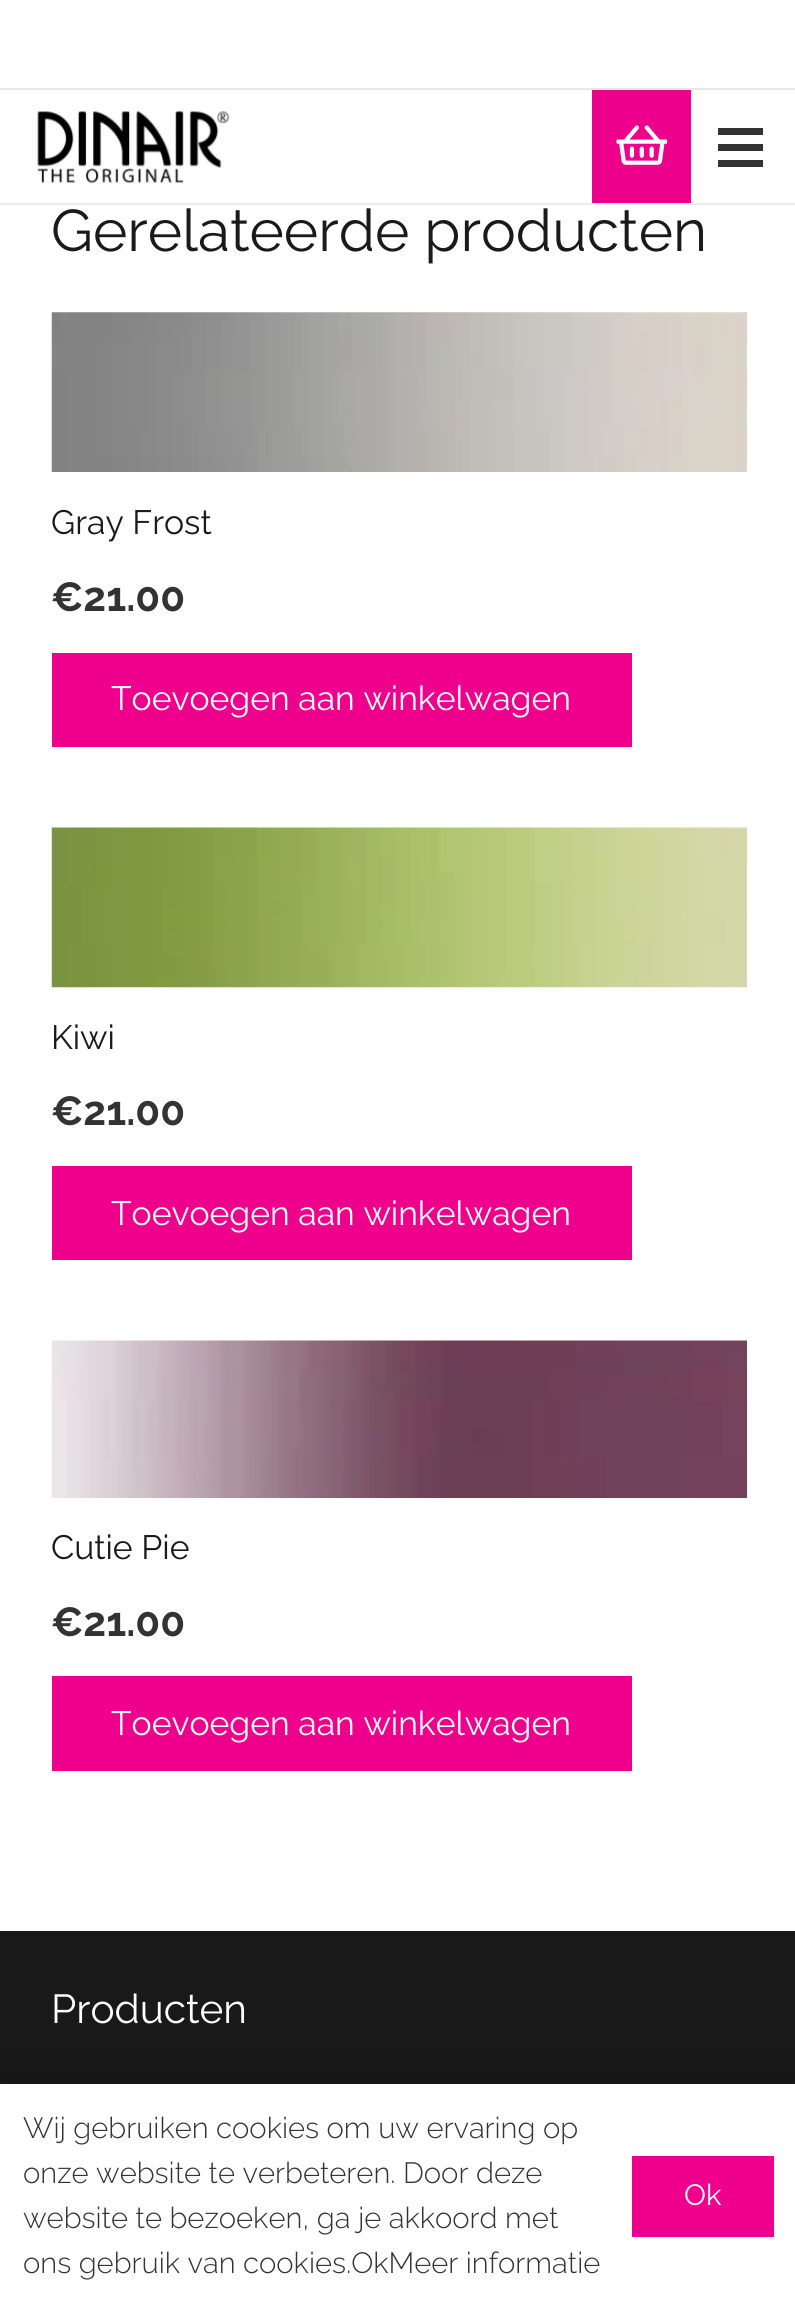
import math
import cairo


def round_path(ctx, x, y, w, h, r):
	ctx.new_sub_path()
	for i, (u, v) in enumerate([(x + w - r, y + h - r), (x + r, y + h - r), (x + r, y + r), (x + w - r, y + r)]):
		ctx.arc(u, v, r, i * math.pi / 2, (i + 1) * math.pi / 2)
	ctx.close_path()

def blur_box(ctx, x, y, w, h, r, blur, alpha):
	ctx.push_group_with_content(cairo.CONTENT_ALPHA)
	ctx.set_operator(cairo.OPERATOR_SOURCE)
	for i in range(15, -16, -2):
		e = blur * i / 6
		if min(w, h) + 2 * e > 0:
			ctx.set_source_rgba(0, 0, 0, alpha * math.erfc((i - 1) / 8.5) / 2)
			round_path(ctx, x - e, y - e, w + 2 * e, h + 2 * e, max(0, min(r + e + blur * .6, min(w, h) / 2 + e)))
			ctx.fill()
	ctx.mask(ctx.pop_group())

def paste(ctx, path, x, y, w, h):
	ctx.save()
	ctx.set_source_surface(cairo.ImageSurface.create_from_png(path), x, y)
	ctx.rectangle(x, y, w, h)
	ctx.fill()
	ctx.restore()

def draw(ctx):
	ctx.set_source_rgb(1, 1, 1)
	ctx.paint()
	ctx.set_source_rgb(0.906, 0.906, 0.906)
	ctx.rectangle(0, 88, 795, 2)
	ctx.fill()
	ctx.set_source_rgb(0.922, 0.922, 0.922)
	ctx.new_path()
	ctx.move_to(0, 202)
	ctx.line_to(0, 205)
	ctx.line_to(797, 205)
	ctx.line_to(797, 92)
	ctx.line_to(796, 92)
	ctx.line_to(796, 202)
	ctx.close_path()
	ctx.fill()
	ctx.set_source_rgb(1, 1, 1)
	ctx.rectangle(0, 202, 795, 1)
	ctx.fill()
	paste(ctx, 'media/1.png', 37, 110, 193, 75)
	ctx.set_source_rgb(0.929, 0, 0.549)
	ctx.rectangle(592, 90, 99, 113)
	ctx.fill()
	paste(ctx, 'media/2.png', 616, 125, 52, 40)
	ctx.set_source_rgb(0.2, 0.2, 0.2)
	ctx.rectangle(718, 144, 45, 7)
	ctx.rectangle(718, 128, 45, 7)
	ctx.rectangle(718, 160, 45, 7)
	ctx.fill()
	ctx.select_font_face('Raleway')
	ctx.set_font_size(58.5)
	ctx.set_source_rgb(0.102, 0.102, 0.102)
	ctx.move_to(51, 251)
	ctx.show_text('Gerelateerde producten')
	paste(ctx, 'media/3.png', 51, 312, 696, 160)
	ctx.set_font_size(33.75)
	ctx.move_to(51, 534)
	ctx.show_text('Gray Frost')
	ctx.select_font_face('Raleway', cairo.FONT_SLANT_NORMAL, cairo.FONT_WEIGHT_BOLD)
	ctx.set_font_size(40.5)
	ctx.set_source_rgb(0.2, 0.2, 0.2)
	ctx.move_to(51, 611)
	ctx.show_text('€21.00')
	ctx.set_source_rgb(0.933, 0, 0.549)
	ctx.rectangle(52, 653, 580, 94)
	ctx.fill()
	ctx.select_font_face('Raleway')
	ctx.set_font_size(33.75)
	ctx.set_source_rgb(1, 1, 1)
	ctx.move_to(111, 710)
	ctx.show_text('Toevoegen aan winkelwagen')
	paste(ctx, 'media/4.png', 51, 827, 696, 161)
	ctx.set_source_rgb(0.102, 0.102, 0.102)
	ctx.move_to(51, 1049)
	ctx.show_text('Kiwi')
	ctx.select_font_face('Raleway', cairo.FONT_SLANT_NORMAL, cairo.FONT_WEIGHT_BOLD)
	ctx.set_font_size(40.5)
	ctx.set_source_rgb(0.2, 0.2, 0.2)
	ctx.move_to(51, 1125)
	ctx.show_text('€21.00')
	ctx.set_source_rgb(0.933, 0, 0.549)
	ctx.rectangle(52, 1166, 580, 94)
	ctx.fill()
	ctx.select_font_face('Raleway')
	ctx.set_font_size(33.75)
	ctx.set_source_rgb(1, 1, 1)
	ctx.move_to(111, 1225)
	ctx.show_text('Toevoegen aan winkelwagen')
	paste(ctx, 'media/5.png', 51, 1340, 696, 158)
	ctx.set_source_rgb(0.102, 0.102, 0.102)
	ctx.move_to(51, 1559)
	ctx.show_text('Cutie Pie')
	ctx.select_font_face('Raleway', cairo.FONT_SLANT_NORMAL, cairo.FONT_WEIGHT_BOLD)
	ctx.set_font_size(40.5)
	ctx.set_source_rgb(0.2, 0.2, 0.2)
	ctx.move_to(51, 1636)
	ctx.show_text('€21.00')
	ctx.set_source_rgb(0.933, 0, 0.549)
	ctx.rectangle(52, 1676, 580, 95)
	ctx.fill()
	ctx.select_font_face('Raleway')
	ctx.set_font_size(33.75)
	ctx.set_source_rgb(1, 1, 1)
	ctx.move_to(111, 1735)
	ctx.show_text('Toevoegen aan winkelwagen')
	ctx.set_source_rgb(0.098, 0.098, 0.098)
	ctx.rectangle(0, 1931, 795, 153)
	ctx.fill()
	ctx.set_font_size(40.5)
	ctx.set_source_rgb(1, 1, 1)
	ctx.move_to(51, 2023)
	ctx.show_text('Producten')
	ctx.set_source_rgb(0, 0, 0)
	blur_box(ctx, 0, 2072, 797, 225, 0, 17, 0.15)
	ctx.set_source_rgb(1, 1, 1)
	ctx.rectangle(0, 2084, 795, 223)
	ctx.fill()
	ctx.select_font_face('Raleway Light')
	ctx.set_font_size(29.25)
	ctx.set_source_rgb(0.2, 0.2, 0.2)
	for x, y, s in [
		(23, 2138, 'Wij gebruiken cookies om uw ervaring op'),
		(23, 2183, 'onze website te verbeteren. Door deze'),
		(23, 2228, 'website te bezoeken, ga je akkoord met'),
		(23, 2273, 'ons gebruik van cookies.OkMeer informatie'),
	]:
		ctx.move_to(x, y)
		ctx.show_text(s)
	ctx.set_source_rgb(0.933, 0, 0.549)
	ctx.rectangle(632, 2156, 142, 81)
	ctx.fill()
	ctx.select_font_face('Raleway')
	ctx.set_source_rgb(1, 1, 1)
	ctx.move_to(684, 2205)
	ctx.show_text('Ok')


surface = cairo.ImageSurface(cairo.FORMAT_RGB24, 795, 2307)
ctx = cairo.Context(surface)
options = cairo.FontOptions()
options.set_hint_metrics(cairo.HINT_METRICS_OFF)
options.set_hint_style(cairo.HINT_STYLE_NONE)
ctx.set_font_options(options)
ctx.set_miter_limit(4)
draw(ctx)
surface.write_to_png('image.png')
